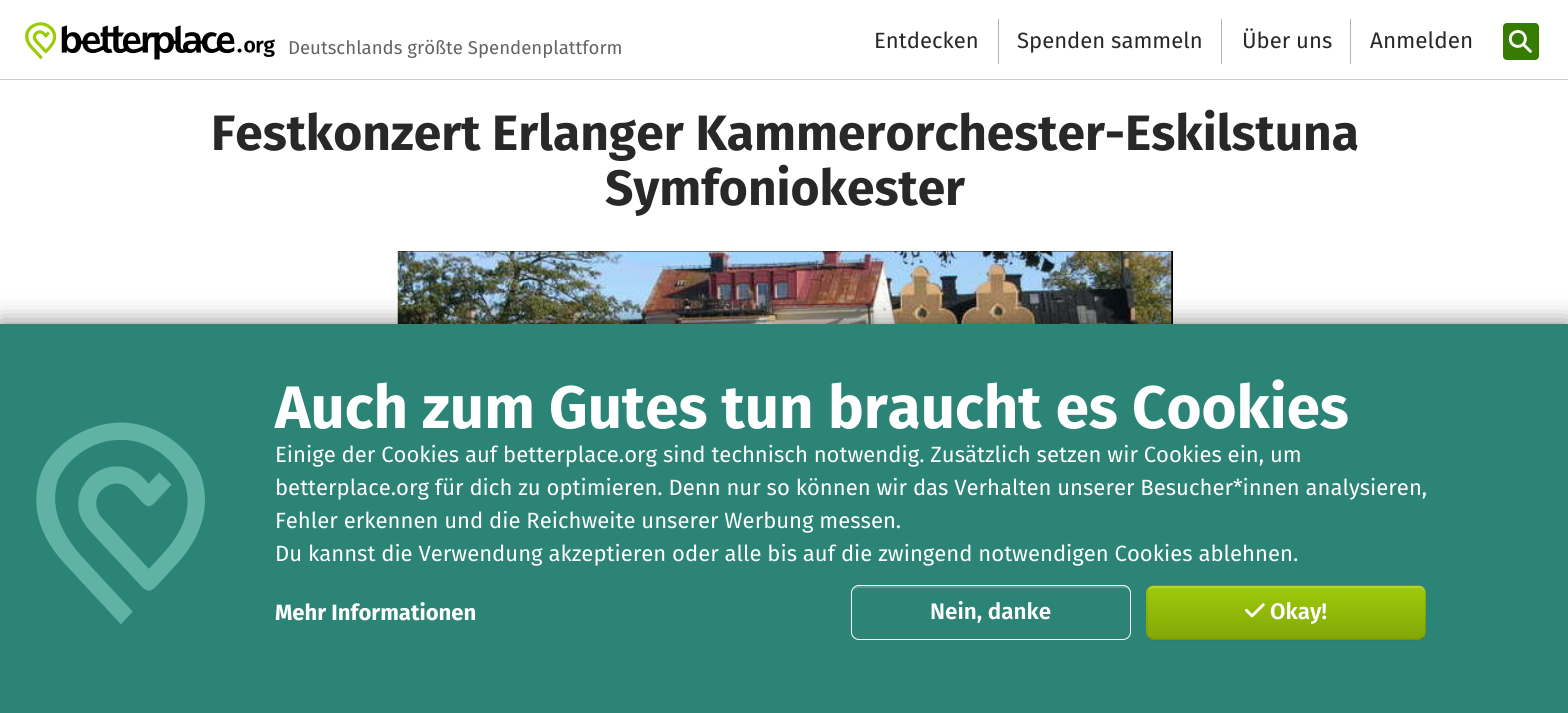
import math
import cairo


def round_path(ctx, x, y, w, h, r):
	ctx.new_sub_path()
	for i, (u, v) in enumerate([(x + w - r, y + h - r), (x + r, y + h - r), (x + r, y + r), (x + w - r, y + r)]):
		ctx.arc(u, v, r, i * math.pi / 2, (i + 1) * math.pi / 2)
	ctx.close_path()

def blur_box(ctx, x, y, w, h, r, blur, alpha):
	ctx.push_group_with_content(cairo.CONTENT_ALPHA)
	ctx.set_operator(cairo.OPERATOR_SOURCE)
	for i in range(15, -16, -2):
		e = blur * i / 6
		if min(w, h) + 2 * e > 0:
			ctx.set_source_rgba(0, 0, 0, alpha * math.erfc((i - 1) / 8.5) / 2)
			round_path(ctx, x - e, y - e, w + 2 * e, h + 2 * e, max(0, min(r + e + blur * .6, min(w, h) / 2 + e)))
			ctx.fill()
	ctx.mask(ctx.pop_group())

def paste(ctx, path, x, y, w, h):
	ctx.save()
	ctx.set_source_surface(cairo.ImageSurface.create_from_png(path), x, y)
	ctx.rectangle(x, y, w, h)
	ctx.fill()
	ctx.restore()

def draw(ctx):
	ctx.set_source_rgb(1, 1, 1)
	ctx.paint()
	ctx.set_source_rgb(0.8, 0.8, 0.8)
	ctx.rectangle(0, 79, 1568, 1)
	ctx.fill()
	paste(ctx, 'media/1.png', 25, 22, 250, 38)
	ctx.select_font_face('Fira Sans')
	ctx.set_font_size(18.6)
	ctx.set_source_rgb(0.388, 0.388, 0.388)
	ctx.move_to(288, 54)
	ctx.show_text('Deutschlands größte Spendenplattform')
	ctx.set_font_size(22.07)
	ctx.set_source_rgb(0.157, 0.157, 0.157)
	ctx.move_to(874, 48)
	ctx.show_text('Entdecken')
	ctx.set_source_rgb(0.702, 0.702, 0.702)
	ctx.rectangle(998, 19, 1, 45)
	ctx.fill()
	ctx.set_source_rgb(0.157, 0.157, 0.157)
	ctx.move_to(1017, 48)
	ctx.show_text('Spenden sammeln')
	ctx.set_source_rgb(0.702, 0.702, 0.702)
	ctx.rectangle(1221, 19, 1, 45)
	ctx.fill()
	ctx.set_source_rgb(0.157, 0.157, 0.157)
	ctx.move_to(1242, 48)
	ctx.show_text('Über uns')
	ctx.set_source_rgb(0.702, 0.702, 0.702)
	ctx.rectangle(1350, 19, 1, 45)
	ctx.fill()
	ctx.set_font_size(22.5)
	ctx.set_source_rgb(0.157, 0.157, 0.157)
	ctx.move_to(1370, 48)
	ctx.show_text('Anmelden')
	ctx.set_source_rgb(0.208, 0.486, 0)
	round_path(ctx, 1503.5, 23.5, 35, 36, 3.5)
	ctx.fill_preserve()
	ctx.set_line_width(1)
	ctx.stroke()
	paste(ctx, 'media/2.png', 1508, 30, 24, 23)
	ctx.select_font_face('Fira Sans', cairo.FONT_SLANT_NORMAL, cairo.FONT_WEIGHT_BOLD)
	ctx.set_font_size(49.7)
	ctx.set_source_rgb(0.157, 0.157, 0.157)
	ctx.move_to(211, 150)
	ctx.show_text('Festkonzert Erlanger Kammerorchester-Eskilstuna')
	ctx.move_to(605, 205)
	ctx.show_text('Symfoniokester')
	ctx.set_source_rgb(0, 0, 0)
	ctx.rectangle(398, 251, 775, 73)
	ctx.fill()
	paste(ctx, 'media/3.png', 397, 251, 775, 73)
	ctx.set_source_rgb(0, 0, 0)
	blur_box(ctx, 0, 324, 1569, 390, 0, 12.5, 0.5)
	ctx.set_source_rgb(0.169, 0.518, 0.459)
	ctx.rectangle(0, 324, 1568, 389)
	ctx.fill()
	paste(ctx, 'media/4.png', 36, 422, 169, 202)
	ctx.set_font_size(60)
	ctx.set_source_rgb(1, 1, 1)
	ctx.move_to(275, 428)
	ctx.show_text('Auch zum Gutes tun braucht es Cookies')
	ctx.select_font_face('Fira Sans')
	ctx.set_font_size(22.07)
	for x, y, s in [
		(275, 462, 'Einige der Cookies auf betterplace.org sind technisch notwendig. Zusätzlich setzen wir Cookies ein, um'),
		(275, 495, 'betterplace.org für dich zu optimieren. Denn nur so können wir das Verhalten unserer Besucher*innen analysieren,'),
		(275, 528, 'Fehler erkennen und die Reichweite unserer Werbung messen.'),
		(275, 561, 'Du kannst die Verwendung akzeptieren oder alle bis auf die zwingend notwendigen Cookies ablehnen.'),
	]:
		ctx.move_to(x, y)
		ctx.show_text(s)
	ctx.select_font_face('Fira Sans', cairo.FONT_SLANT_NORMAL, cairo.FONT_WEIGHT_BOLD)
	ctx.move_to(275, 620)
	ctx.show_text('Mehr Informationen')
	ctx.set_source_rgb(0.333, 0.616, 0.569)
	ctx.new_path()
	ctx.move_to(859, 588)
	ctx.line_to(1124, 588)
	ctx.curve_to(1127, 588, 1130, 590, 1130, 594)
	ctx.line_to(1130, 592)
	ctx.curve_to(1130, 589, 1127, 586, 1124, 586)
	ctx.line_to(859, 586)
	ctx.curve_to(856, 586, 854, 588, 853, 590)
	ctx.curve_to(855, 589, 857, 588, 859, 588)
	ctx.close_path()
	ctx.fill()
	round_path(ctx, 851.5, 585.5, 279, 54, 7.5)
	ctx.set_source_rgb(1, 1, 1)
	ctx.stroke()
	ctx.select_font_face('Fira Sans SemiBold')
	ctx.set_font_size(22.5)
	ctx.move_to(930, 619)
	ctx.show_text('Nein, danke')
	ctx.save()
	round_path(ctx, 1146, 585, 280, 55, 8)
	ctx.clip()
	gradient = cairo.LinearGradient(1286, 534, 1286, 586)
	gradient.add_color_stop_rgba(0, 0.62, 0.796, 0.039, 1)
	gradient.add_color_stop_rgba(1, 0.51, 0.655, 0.031, 1)
	ctx.set_source(gradient)
	ctx.rectangle(1146, 585, 280, 1)
	ctx.fill()
	gradient = cairo.LinearGradient(1286, 586, 1286, 639)
	gradient.add_color_stop_rgba(0, 0.62, 0.796, 0.039, 1)
	gradient.add_color_stop_rgba(1, 0.51, 0.655, 0.031, 1)
	ctx.set_source(gradient)
	ctx.rectangle(1146, 586, 280, 53)
	ctx.fill()
	gradient = cairo.LinearGradient(1286, 639, 1286, 691)
	gradient.add_color_stop_rgba(0, 0.62, 0.796, 0.039, 1)
	gradient.add_color_stop_rgba(1, 0.51, 0.655, 0.031, 1)
	ctx.set_source(gradient)
	ctx.rectangle(1146, 639, 280, 1)
	ctx.fill()
	ctx.restore()
	ctx.set_source_rgba(1, 1, 1, 0.2)
	ctx.new_path()
	ctx.move_to(1154, 588)
	ctx.line_to(1419, 588)
	ctx.curve_to(1422, 588, 1425, 590, 1425, 594)
	ctx.curve_to(1425, 590, 1424, 586, 1419, 586)
	ctx.line_to(1154, 586)
	ctx.curve_to(1149, 586, 1148, 590, 1148, 594)
	ctx.curve_to(1148, 590, 1150, 588, 1154, 588)
	ctx.close_path()
	ctx.fill()
	ctx.new_path()
	ctx.move_to(1423.5, 637.5)
	ctx.curve_to(1422.5, 638.5, 1420.5, 639.5, 1419, 639.5)
	ctx.line_to(1154, 639.5)
	ctx.curve_to(1152, 639.5, 1150, 638.5, 1149, 637.5)
	ctx.set_source_rgba(0, 0, 0, 0.25)
	ctx.set_line_width(1.2)
	ctx.stroke()
	ctx.new_path()
	ctx.move_to(1149, 637.5)
	ctx.curve_to(1147.5, 636, 1147, 634.5, 1147, 632.5)
	ctx.line_to(1147, 592.5)
	ctx.curve_to(1147, 590.5, 1147.5, 589, 1149, 587.5)
	ctx.curve_to(1150, 586.5, 1152, 585.5, 1154, 585.5)
	ctx.line_to(1419, 585.5)
	ctx.curve_to(1420.5, 585.5, 1422.5, 586.5, 1423.5, 587.5)
	ctx.curve_to(1425, 589, 1425.5, 590.5, 1425.5, 592.5)
	ctx.line_to(1425.5, 632.5)
	ctx.curve_to(1425.5, 634.5, 1425, 636, 1423.5, 637.5)
	ctx.set_source_rgba(0, 0, 0, 0.1)
	ctx.stroke()
	paste(ctx, 'media/5.png', 1245, 603, 20, 15)
	ctx.set_source_rgb(1, 1, 1)
	ctx.move_to(1270, 619)
	ctx.show_text('Okay!')


surface = cairo.ImageSurface(cairo.FORMAT_RGB24, 1568, 713)
ctx = cairo.Context(surface)
options = cairo.FontOptions()
options.set_hint_metrics(cairo.HINT_METRICS_OFF)
options.set_hint_style(cairo.HINT_STYLE_NONE)
ctx.set_font_options(options)
ctx.set_miter_limit(4)
draw(ctx)
surface.write_to_png('image.png')
